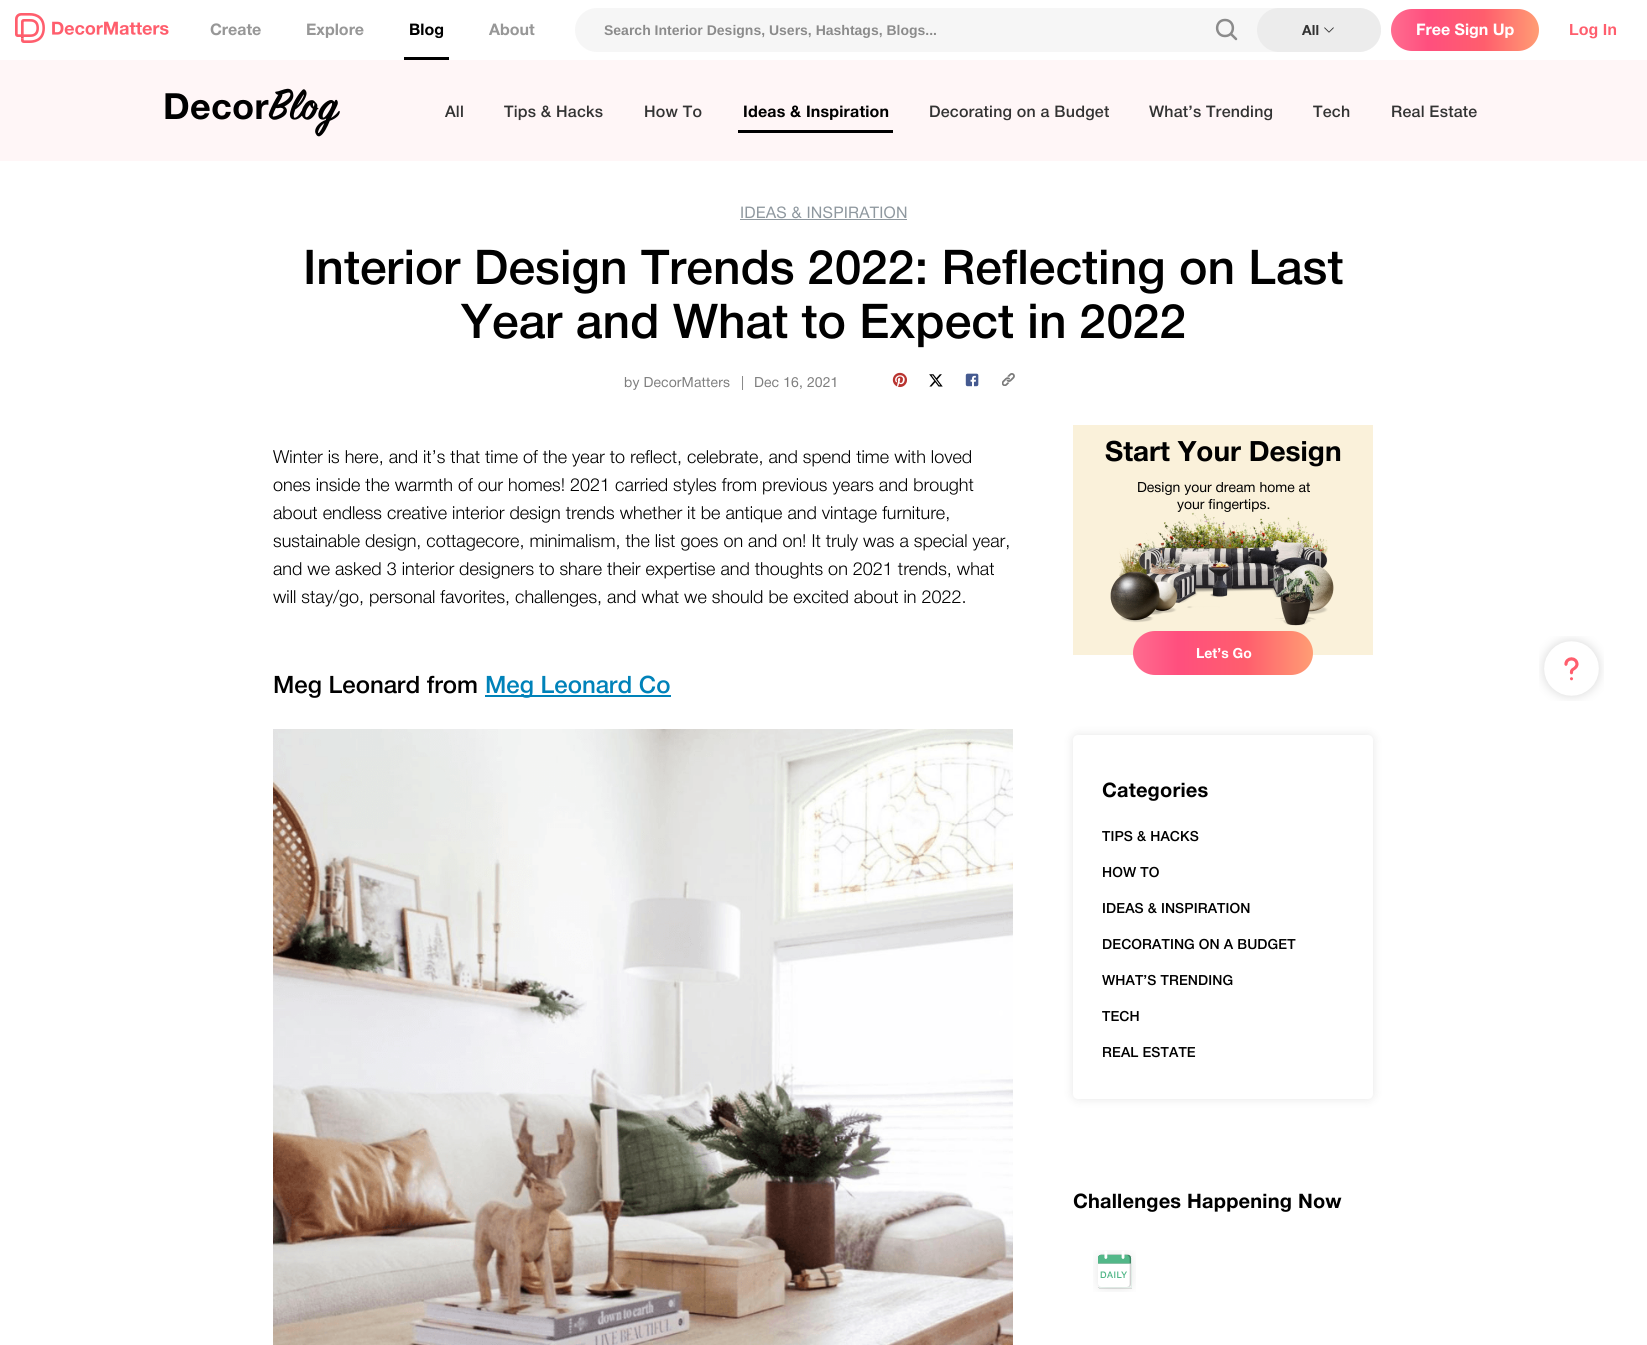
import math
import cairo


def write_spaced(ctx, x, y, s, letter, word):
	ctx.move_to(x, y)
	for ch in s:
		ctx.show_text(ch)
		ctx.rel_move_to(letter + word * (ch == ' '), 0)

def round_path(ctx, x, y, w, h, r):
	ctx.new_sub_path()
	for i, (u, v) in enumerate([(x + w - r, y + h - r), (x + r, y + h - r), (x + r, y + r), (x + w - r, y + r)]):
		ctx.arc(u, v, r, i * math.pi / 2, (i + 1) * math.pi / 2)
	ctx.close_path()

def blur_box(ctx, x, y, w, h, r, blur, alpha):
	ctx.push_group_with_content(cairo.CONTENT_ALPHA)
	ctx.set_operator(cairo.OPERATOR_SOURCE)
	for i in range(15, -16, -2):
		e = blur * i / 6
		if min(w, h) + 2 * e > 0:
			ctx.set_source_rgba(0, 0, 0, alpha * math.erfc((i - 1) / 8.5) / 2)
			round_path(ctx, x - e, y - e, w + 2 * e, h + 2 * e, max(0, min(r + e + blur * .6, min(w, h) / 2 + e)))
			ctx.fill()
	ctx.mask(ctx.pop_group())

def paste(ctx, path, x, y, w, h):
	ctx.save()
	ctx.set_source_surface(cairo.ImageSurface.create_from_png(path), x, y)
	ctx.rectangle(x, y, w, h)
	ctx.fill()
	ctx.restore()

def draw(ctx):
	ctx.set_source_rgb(1, 1, 1)
	ctx.paint()
	paste(ctx, 'media/1.png', 15, 13, 154, 30)
	ctx.select_font_face('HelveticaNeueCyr', cairo.FONT_SLANT_NORMAL, cairo.FONT_WEIGHT_BOLD)
	ctx.set_font_size(16)
	ctx.set_source_rgb(0.592, 0.592, 0.592)
	ctx.move_to(210, 35)
	ctx.show_text('Create')
	ctx.move_to(306, 35)
	ctx.show_text('Explore')
	ctx.set_source_rgb(0, 0, 0)
	ctx.rectangle(404, 57, 45, 3)
	ctx.fill()
	ctx.move_to(409, 35)
	ctx.show_text('Blog')
	ctx.set_source_rgb(0.592, 0.592, 0.592)
	ctx.move_to(489, 35)
	ctx.show_text('About')
	ctx.set_source_rgb(0.961, 0.961, 0.961)
	round_path(ctx, 575, 8, 806, 44, 22)
	ctx.fill()
	ctx.select_font_face('Liberation Sans', cairo.FONT_SLANT_NORMAL, cairo.FONT_WEIGHT_BOLD)
	ctx.set_font_size(14)
	ctx.set_source_rgb(0.545, 0.545, 0.545)
	ctx.move_to(604, 35)
	ctx.show_text('Search Interior Designs, Users, Hashtags, Blogs...')
	ctx.new_path()
	ctx.move_to(1225, 36)
	ctx.curve_to(1235.5, 36, 1235.5, 20, 1225, 20)
	ctx.curve_to(1214.5, 20, 1214.5, 36, 1225, 36)
	ctx.close_path()
	ctx.move_to(1231, 34)
	ctx.line_to(1236, 39)
	ctx.set_line_width(2.5)
	ctx.set_line_cap(cairo.LINE_CAP_ROUND)
	ctx.set_line_join(cairo.LINE_JOIN_ROUND)
	ctx.stroke()
	ctx.set_source_rgb(0.925, 0.925, 0.925)
	round_path(ctx, 1257, 8, 124, 44, 22)
	ctx.fill()
	ctx.select_font_face('HelveticaNeueCyr', cairo.FONT_SLANT_NORMAL, cairo.FONT_WEIGHT_BOLD)
	ctx.set_source_rgb(0.2, 0.2, 0.2)
	write_spaced(ctx, 1302, 35, 'All', 0.1, 0)
	paste(ctx, 'media/2.png', 1324, 27, 10, 6)
	gradient = cairo.LinearGradient(1539, 30, 1391, 30)
	gradient.add_color_stop_rgba(0, 1, 0.616, 0.455, 1)
	gradient.add_color_stop_rgba(0.37, 1, 0.369, 0.427, 1)
	gradient.add_color_stop_rgba(0.75, 1, 0.31, 0.494, 1)
	gradient.add_color_stop_rgba(1, 1, 0.427, 0.565, 1)
	ctx.set_source(gradient)
	round_path(ctx, 1391, 9, 148, 42, 21)
	ctx.fill()
	ctx.set_font_size(16)
	ctx.set_source_rgb(1, 1, 1)
	ctx.move_to(1416, 35)
	ctx.show_text('Free Sign Up')
	ctx.select_font_face('Liberation Sans', cairo.FONT_SLANT_NORMAL, cairo.FONT_WEIGHT_BOLD)
	ctx.set_source_rgb(1, 0.369, 0.427)
	ctx.move_to(1569, 35)
	ctx.show_text('Log In')
	ctx.set_source_rgb(1, 0.961, 0.965)
	ctx.rectangle(0, 60, 1647, 101)
	ctx.fill()
	paste(ctx, 'media/3.png', 165, 88, 175, 49)
	ctx.select_font_face('HelveticaNeueCyr Medium')
	ctx.set_source_rgb(0.2, 0.2, 0.2)
	for x, y, s in [
		(445, 117, 'All'),
		(504, 117, 'Tips & Hacks'),
		(644, 117, 'How To'),
	]:
		write_spaced(ctx, x, y, s, 0.2, 0)
	ctx.set_source_rgb(0, 0, 0)
	ctx.rectangle(738, 130, 155, 3)
	ctx.fill()
	ctx.select_font_face('HelveticaNeueCyr', cairo.FONT_SLANT_NORMAL, cairo.FONT_WEIGHT_BOLD)
	write_spaced(ctx, 743, 117, 'Ideas & Inspiration', 0.2, 0)
	ctx.select_font_face('HelveticaNeueCyr Medium')
	ctx.set_source_rgb(0.2, 0.2, 0.2)
	for x, y, s in [
		(929, 117, 'Decorating on a Budget'),
		(1149, 117, 'What’s Trending'),
		(1313, 117, 'Tech'),
		(1391, 117, 'Real Estate'),
	]:
		write_spaced(ctx, x, y, s, 0.2, 0)
	ctx.select_font_face('HelveticaNeueCyr')
	ctx.set_source_rgb(0.561, 0.596, 0.624)
	write_spaced(ctx, 740, 218, 'IDEAS & INSPIRATION', 0.2, 0)
	ctx.rectangle(740, 219, 167, 1)
	ctx.fill()
	ctx.select_font_face('HelveticaNeueCyr Medium')
	ctx.set_font_size(48)
	ctx.set_source_rgb(0, 0, 0)
	ctx.move_to(303, 284)
	ctx.show_text('Interior Design Trends 2022: Reflecting on Last')
	ctx.move_to(461, 338)
	ctx.show_text('Year and What to Expect in 2022')
	ctx.select_font_face('HelveticaNeueCyr')
	ctx.set_font_size(14)
	ctx.set_source_rgb(0.494, 0.494, 0.494)
	for x, y, s in [
		(624, 387, 'by DecorMatters'),
		(741, 387, '|'),
		(754, 387, 'Dec 16, 2021'),
	]:
		write_spaced(ctx, x, y, s, 0.1, 0)
	paste(ctx, 'media/4.png', 892, 372, 15, 16)
	paste(ctx, 'media/5.png', 929, 374, 14, 13)
	paste(ctx, 'media/6.png', 965, 373, 14, 14)
	paste(ctx, 'media/7.png', 1002, 373, 13, 13)
	ctx.select_font_face('HelveticaNeueCyr Light')
	ctx.set_font_size(18)
	ctx.set_source_rgb(0, 0, 0)
	for x, y, s in [
		(273, 463, 'Winter is here, and it’s that time of the year to reflect, celebrate, and spend time with loved'),
		(273, 491, 'ones inside the warmth of our homes! 2021 carried styles from previous years and brought'),
		(273, 519, 'about endless creative interior design trends whether it be antique and vintage furniture,'),
		(273, 547, 'sustainable design, cottagecore, minimalism, the list goes on and on! It truly was a special year,'),
		(273, 575, 'and we asked 3 interior designers to share their expertise and thoughts on 2021 trends, what'),
		(273, 603, 'will stay/go, personal favorites, challenges, and what we should be excited about in 2022.'),
	]:
		ctx.move_to(x, y)
		ctx.show_text(s)
	ctx.select_font_face('HelveticaNeueCyr Medium')
	ctx.set_font_size(24)
	ctx.move_to(273, 693)
	ctx.show_text('Meg Leonard from')
	ctx.set_source_rgb(0, 0.51, 0.725)
	ctx.rectangle(485, 695, 186, 2)
	ctx.fill()
	ctx.move_to(485, 693)
	ctx.show_text('Meg Leonard Co')
	paste(ctx, 'media/8.png', 273, 729, 740, 616)
	ctx.set_source_rgb(0.98, 0.945, 0.855)
	ctx.rectangle(1073, 425, 300, 230)
	ctx.fill()
	ctx.select_font_face('HelveticaNeueCyr', cairo.FONT_SLANT_NORMAL, cairo.FONT_WEIGHT_BOLD)
	ctx.set_font_size(28)
	ctx.set_source_rgb(0, 0, 0)
	ctx.move_to(1105, 461)
	ctx.show_text('Start Your Design')
	ctx.select_font_face('HelveticaNeueCyr')
	ctx.set_font_size(14)
	ctx.move_to(1137, 492)
	ctx.show_text('Design your dream home at')
	ctx.move_to(1177, 509)
	ctx.show_text('your fingertips.')
	paste(ctx, 'media/9.png', 1110, 512, 224, 114)
	gradient = cairo.LinearGradient(1313, 653, 1133, 653)
	gradient.add_color_stop_rgba(0, 1, 0.616, 0.455, 1)
	gradient.add_color_stop_rgba(0.37, 1, 0.369, 0.427, 1)
	gradient.add_color_stop_rgba(0.75, 1, 0.31, 0.494, 1)
	gradient.add_color_stop_rgba(1, 1, 0.427, 0.565, 1)
	ctx.set_source(gradient)
	round_path(ctx, 1133, 631, 180, 44, 22)
	ctx.fill()
	ctx.select_font_face('HelveticaNeueCyr', cairo.FONT_SLANT_NORMAL, cairo.FONT_WEIGHT_BOLD)
	ctx.set_source_rgb(1, 1, 1)
	ctx.move_to(1196, 658)
	ctx.show_text('Let’s Go')
	ctx.set_source_rgb(0, 0, 0)
	blur_box(ctx, 1073, 735, 300, 364, 5, 5, 0.1)
	ctx.set_source_rgb(1, 1, 1)
	round_path(ctx, 1073, 735, 300, 364, 5)
	ctx.fill()
	ctx.set_font_size(20)
	ctx.set_source_rgb(0, 0, 0)
	write_spaced(ctx, 1102, 797, 'Categories', 0.2, 0)
	ctx.select_font_face('HelveticaNeueCyr Medium')
	ctx.set_font_size(14)
	for x, y, s in [
		(1102, 841, 'TIPS & HACKS'),
		(1102, 877, 'HOW TO'),
		(1102, 913, 'IDEAS & INSPIRATION'),
		(1102, 949, 'DECORATING ON A BUDGET'),
		(1102, 985, 'WHAT’S TRENDING'),
		(1102, 1021, 'TECH'),
		(1102, 1057, 'REAL ESTATE'),
	]:
		write_spaced(ctx, x, y, s, 0.1, 0)
	ctx.select_font_face('HelveticaNeueCyr', cairo.FONT_SLANT_NORMAL, cairo.FONT_WEIGHT_BOLD)
	ctx.set_font_size(20)
	write_spaced(ctx, 1073, 1208, 'Challenges Happening Now', 0.2, 0)
	paste(ctx, 'media/10.png', 1093, 1250, 43, 42)
	paste(ctx, 'media/11.png', 1539, 636, 65, 65)


surface = cairo.ImageSurface(cairo.FORMAT_RGB24, 1647, 1345)
ctx = cairo.Context(surface)
options = cairo.FontOptions()
options.set_hint_metrics(cairo.HINT_METRICS_OFF)
options.set_hint_style(cairo.HINT_STYLE_NONE)
ctx.set_font_options(options)
ctx.set_miter_limit(4)
draw(ctx)
surface.write_to_png('image.png')
